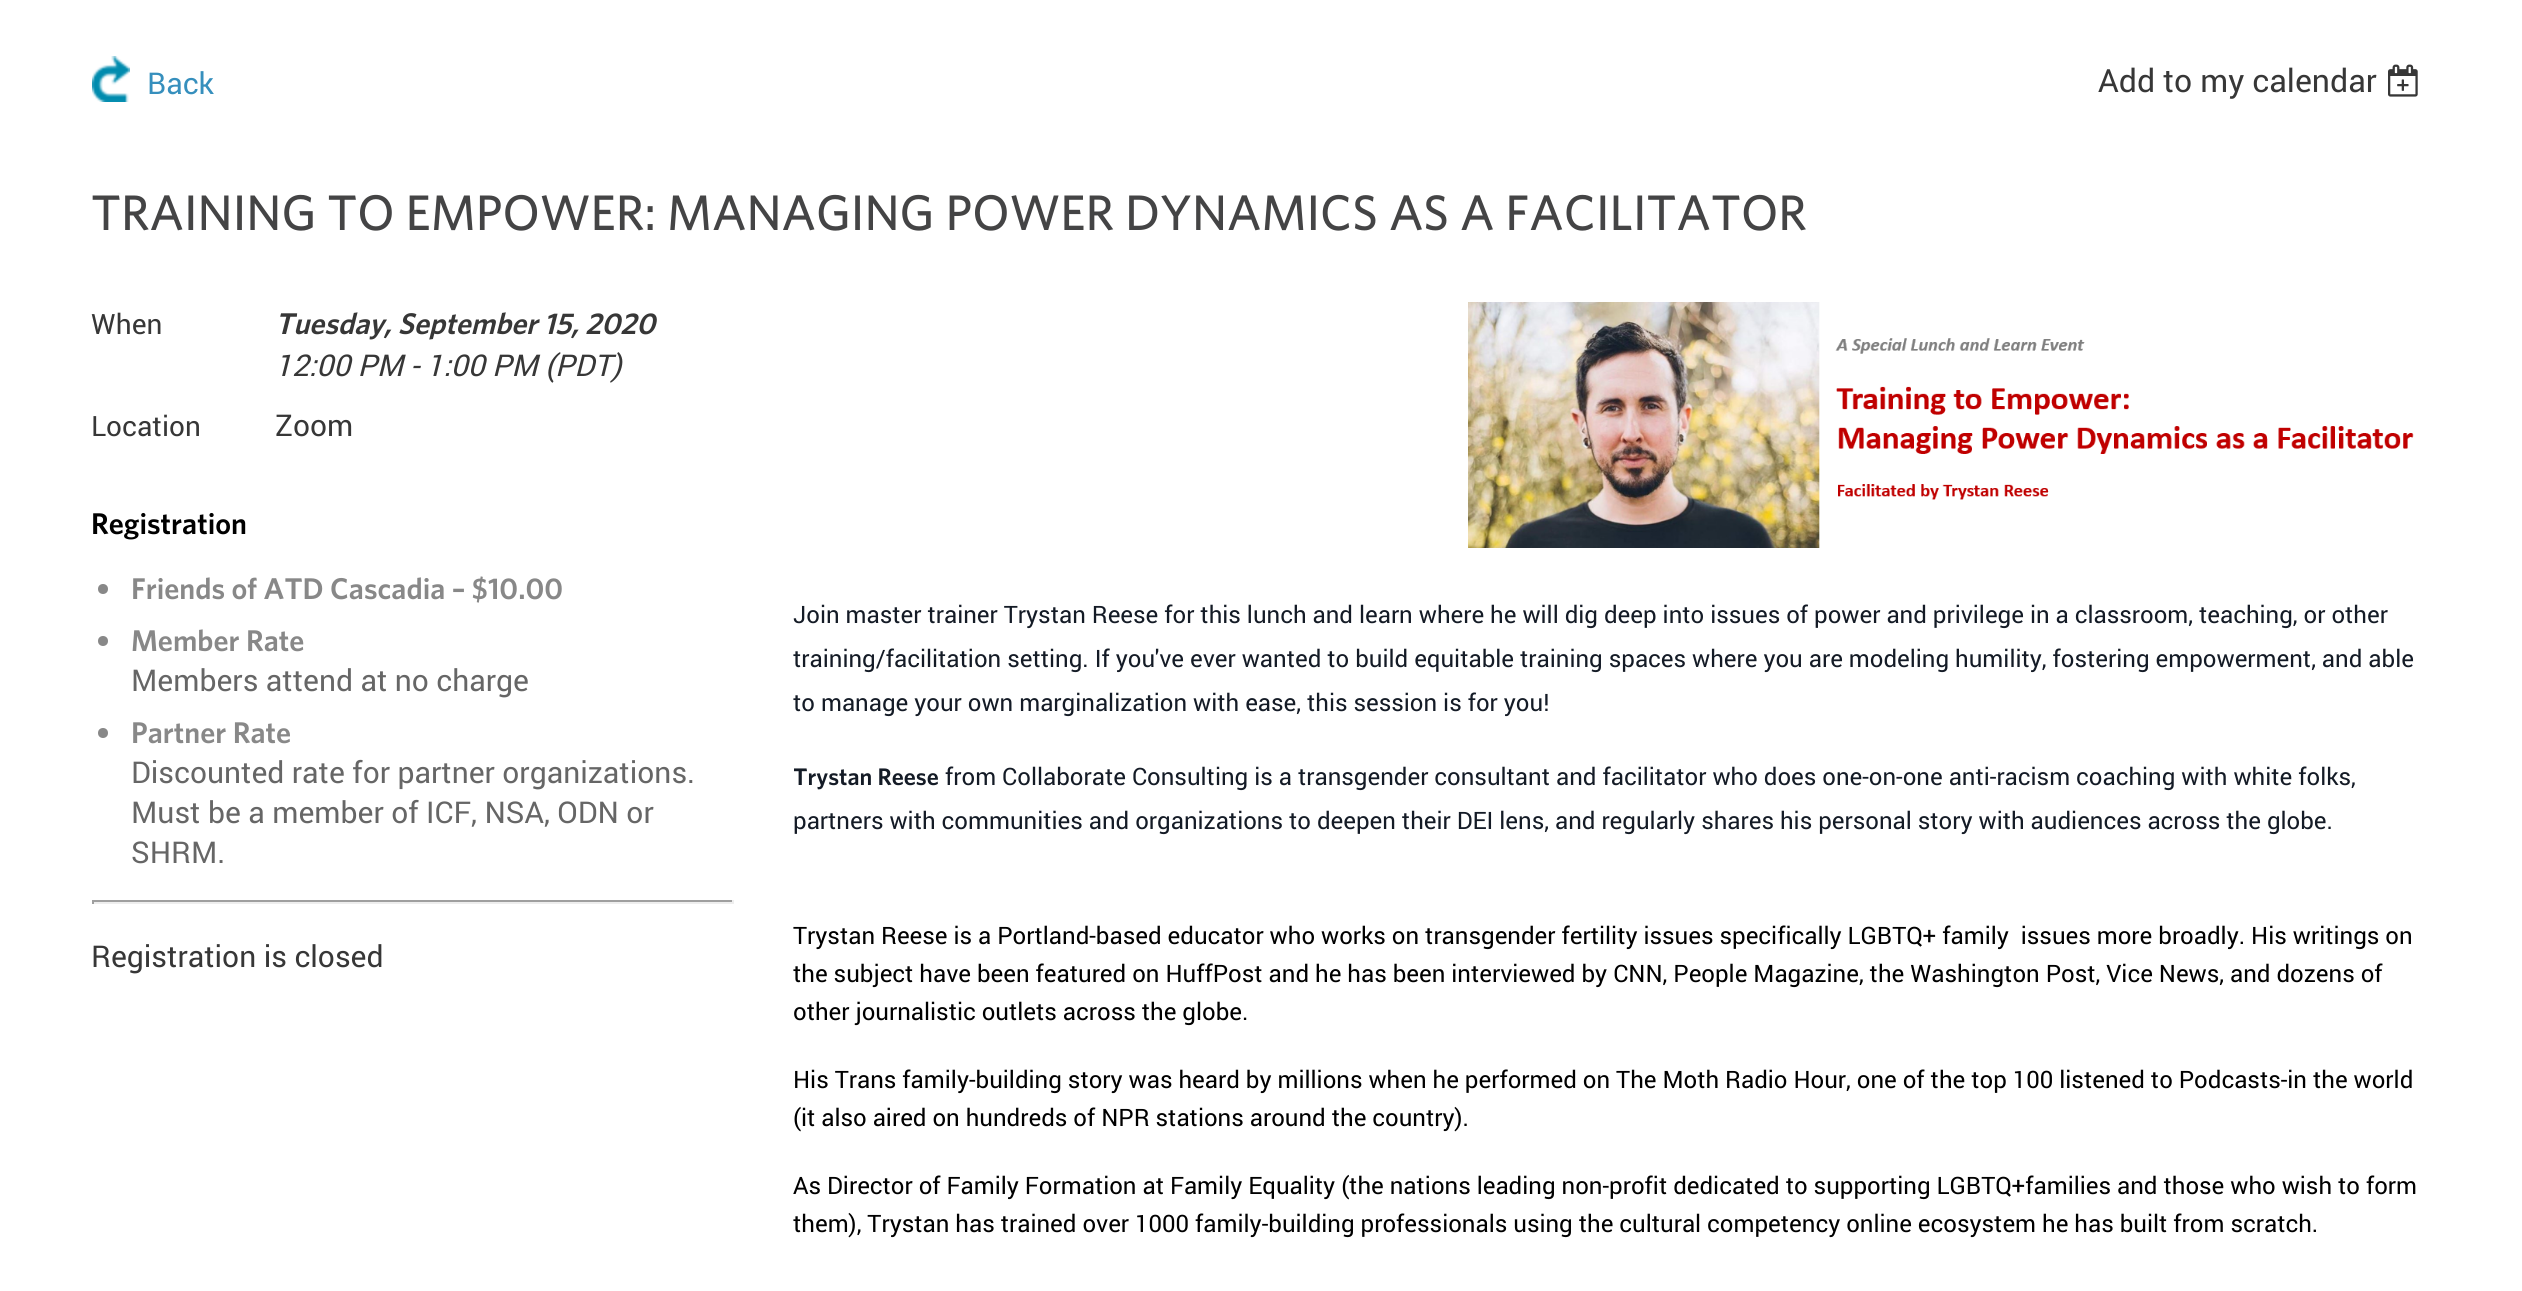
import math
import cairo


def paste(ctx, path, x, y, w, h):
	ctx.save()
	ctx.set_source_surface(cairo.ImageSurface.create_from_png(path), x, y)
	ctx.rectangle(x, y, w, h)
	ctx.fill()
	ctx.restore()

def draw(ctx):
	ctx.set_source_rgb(1, 1, 1)
	ctx.paint()
	paste(ctx, 'media/1.png', 92, 56, 38, 46)
	ctx.select_font_face('Roboto')
	ctx.set_font_size(30)
	ctx.set_source_rgb(0.212, 0.561, 0.741)
	ctx.move_to(147, 94)
	ctx.show_text('Back')
	ctx.set_font_size(32)
	ctx.set_source_rgb(0.216, 0.216, 0.216)
	ctx.move_to(2098, 92)
	ctx.show_text('Add to my calendar')
	paste(ctx, 'media/2.png', 2388, 64, 30, 33)
	ctx.select_font_face('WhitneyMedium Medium')
	ctx.set_font_size(50)
	ctx.set_source_rgb(0.267, 0.267, 0.271)
	ctx.move_to(91, 230)
	ctx.show_text('TRAINING TO EMPOWER: MANAGING POWER DYNAMICS AS A FACILITATOR')
	ctx.select_font_face('Roboto')
	ctx.set_font_size(28)
	ctx.set_source_rgb(0.216, 0.216, 0.216)
	ctx.move_to(91, 334)
	ctx.show_text('When')
	ctx.select_font_face('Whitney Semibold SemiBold', cairo.FONT_SLANT_ITALIC)
	ctx.set_font_size(30)
	ctx.move_to(275, 334)
	ctx.show_text('Tuesday, September 15, 2020')
	ctx.select_font_face('Roboto', cairo.FONT_SLANT_ITALIC)
	ctx.move_to(275, 376)
	ctx.show_text('12:00 PM - 1:00 PM (PDT)')
	ctx.select_font_face('Roboto')
	ctx.set_font_size(28)
	ctx.move_to(91, 436)
	ctx.show_text('Location')
	ctx.set_font_size(30)
	ctx.move_to(275, 436)
	ctx.show_text('Zoom')
	ctx.select_font_face('Whitney Semibold SemiBold')
	ctx.set_source_rgb(0, 0, 0)
	ctx.move_to(91, 534)
	ctx.show_text('Registration')
	ctx.set_source_rgb(0.533, 0.533, 0.533)
	ctx.new_path()
	ctx.arc(103, 589, 5, 0, 2 * math.pi)
	ctx.fill()
	ctx.move_to(131, 599)
	ctx.show_text('Friends of ATD Cascadia – $10.00')
	ctx.new_path()
	ctx.arc(103, 641, 5, 0, 2 * math.pi)
	ctx.fill()
	ctx.move_to(131, 651)
	ctx.show_text('Member Rate')
	ctx.select_font_face('Roboto')
	ctx.set_source_rgb(0.4, 0.4, 0.4)
	ctx.move_to(131, 691)
	ctx.show_text('Members attend at no charge')
	ctx.set_source_rgb(0.533, 0.533, 0.533)
	ctx.new_path()
	ctx.arc(103, 733, 5, 0, 2 * math.pi)
	ctx.fill()
	ctx.select_font_face('Whitney Semibold SemiBold')
	ctx.move_to(131, 743)
	ctx.show_text('Partner Rate')
	ctx.select_font_face('Roboto')
	ctx.set_source_rgb(0.4, 0.4, 0.4)
	for x, y, s in [
		(131, 783, 'Discounted rate for partner organizations.'),
		(131, 823, 'Must be a member of ICF, NSA, ODN or'),
		(131, 863, 'SHRM.'),
	]:
		ctx.move_to(x, y)
		ctx.show_text(s)
	ctx.set_source_rgb(0.624, 0.624, 0.624)
	ctx.rectangle(92, 900, 642, 2)
	ctx.fill()
	ctx.set_source_rgb(0.933, 0.933, 0.933)
	ctx.rectangle(732, 900, 2, 4)
	ctx.rectangle(92, 902, 642, 2)
	ctx.fill()
	ctx.set_source_rgb(0.624, 0.624, 0.624)
	ctx.rectangle(92, 900, 2, 4)
	ctx.fill()
	ctx.set_source_rgb(0.216, 0.216, 0.216)
	ctx.move_to(91, 967)
	ctx.show_text('Registration is closed')
	paste(ctx, 'media/3.png', 1468, 302, 946, 246)
	ctx.set_font_size(24)
	ctx.set_source_rgb(0.082, 0.106, 0.149)
	for x, y, s in [
		(793, 623, 'Join master trainer Trystan Reese for this lunch and learn where he will dig deep into issues of power and privilege in a classroom, teaching, or other'),
		(793, 667, 'training/facilitation setting. If you\'ve ever wanted to build equitable training spaces where you are modeling humility, fostering empowerment, and able'),
		(793, 711, 'to manage your own marginalization with ease, this session is for you!'),
	]:
		ctx.move_to(x, y)
		ctx.show_text(s)
	ctx.save()
	ctx.rectangle(794, 302, 1638, 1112)
	ctx.clip()
	ctx.select_font_face('Whitney Semibold SemiBold')
	ctx.move_to(793, 785)
	ctx.show_text('Trystan Reese')
	ctx.restore()
	ctx.move_to(945, 785)
	ctx.show_text('from Collaborate Consulting is a transgender consultant and facilitator who does one-on-one anti-racism coaching with white folks,')
	ctx.move_to(793, 829)
	ctx.show_text('partners with communities and organizations to deepen their DEI lens, and regularly shares his personal story with audiences across the globe.')
	ctx.set_source_rgb(0, 0, 0)
	for x, y, s in [
		(793, 944, 'Trystan Reese is a Portland-based educator who works on transgender fertility issues specifically LGBTQ+ family  issues more broadly. His writings on'),
		(793, 982, 'the subject have been featured on HuffPost and he has been interviewed by CNN, People Magazine, the Washington Post, Vice News, and dozens of'),
		(793, 1020, 'other journalistic outlets across the globe.'),
		(793, 1088, 'His Trans family-building story was heard by millions when he performed on The Moth Radio Hour, one of the top 100 listened to Podcasts-in the world'),
		(793, 1126, '(it also aired on hundreds of NPR stations around the country).'),
		(793, 1194, 'As Director of Family Formation at Family Equality (the nations leading non-profit dedicated to supporting LGBTQ+families and those who wish to form'),
		(793, 1232, 'them), Trystan has trained over 1000 family-building professionals using the cultural competency online ecosystem he has built from scratch.'),
	]:
		ctx.move_to(x, y)
		ctx.show_text(s)


surface = cairo.ImageSurface(cairo.FORMAT_RGB24, 2522, 1291)
ctx = cairo.Context(surface)
options = cairo.FontOptions()
options.set_hint_metrics(cairo.HINT_METRICS_OFF)
options.set_hint_style(cairo.HINT_STYLE_NONE)
ctx.set_font_options(options)
ctx.set_miter_limit(4)
draw(ctx)
surface.write_to_png('image.png')
